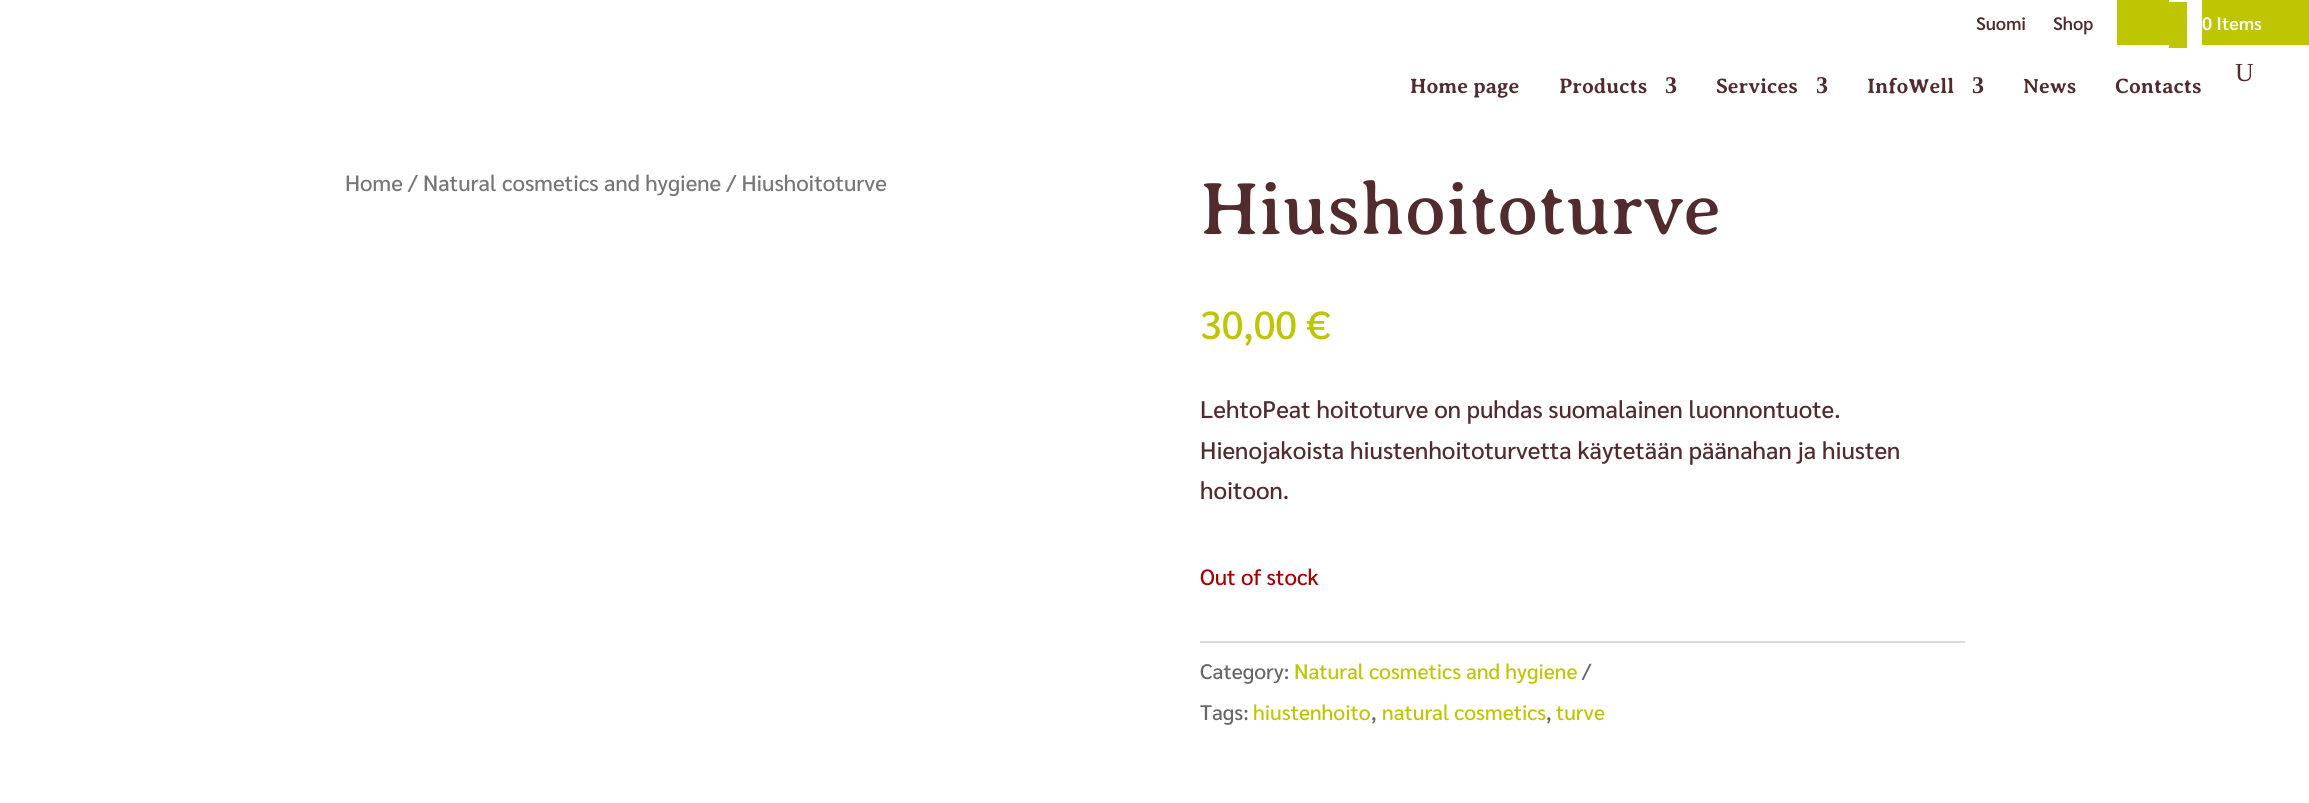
import math
import cairo


def draw(ctx):
	ctx.set_source_rgb(1, 1, 1)
	ctx.paint()
	ctx.select_font_face('Sarabun SemiBold')
	ctx.set_font_size(18)
	ctx.set_source_rgb(0.322, 0.169, 0.18)
	ctx.move_to(1976, 30)
	ctx.show_text('Suomi')
	ctx.move_to(2053, 30)
	ctx.show_text('Shop')
	ctx.set_source_rgb(0.745, 0.773, 0.008)
	ctx.rectangle(2202, 0, 107, 45)
	ctx.fill()
	ctx.set_source_rgb(1, 1, 1)
	ctx.move_to(2202, 30)
	ctx.show_text('0 Items')
	ctx.set_source_rgb(0.745, 0.773, 0.008)
	ctx.rectangle(2117, 0, 52, 45)
	ctx.fill()
	ctx.rectangle(2169, 2, 18, 46)
	ctx.fill()
	ctx.select_font_face('Liberation Serif')
	ctx.set_font_size(26)
	ctx.set_source_rgb(0.322, 0.169, 0.18)
	ctx.move_to(2235, 81)
	ctx.show_text('U')
	ctx.select_font_face('Averia Serif Libre', cairo.FONT_SLANT_NORMAL, cairo.FONT_WEIGHT_BOLD)
	ctx.set_font_size(21)
	ctx.move_to(1410, 93)
	ctx.show_text('Home page')
	ctx.move_to(1559, 93)
	ctx.show_text('Products')
	ctx.select_font_face('Liberation Serif', cairo.FONT_SLANT_NORMAL, cairo.FONT_WEIGHT_BOLD)
	ctx.set_font_size(24)
	ctx.move_to(1665, 93)
	ctx.show_text('3')
	ctx.select_font_face('Averia Serif Libre', cairo.FONT_SLANT_NORMAL, cairo.FONT_WEIGHT_BOLD)
	ctx.set_font_size(21)
	ctx.move_to(1716, 93)
	ctx.show_text('Services')
	ctx.select_font_face('Liberation Serif', cairo.FONT_SLANT_NORMAL, cairo.FONT_WEIGHT_BOLD)
	ctx.set_font_size(24)
	ctx.move_to(1816, 93)
	ctx.show_text('3')
	ctx.select_font_face('Averia Serif Libre', cairo.FONT_SLANT_NORMAL, cairo.FONT_WEIGHT_BOLD)
	ctx.set_font_size(21)
	ctx.move_to(1867, 93)
	ctx.show_text('InfoWell')
	ctx.select_font_face('Liberation Serif', cairo.FONT_SLANT_NORMAL, cairo.FONT_WEIGHT_BOLD)
	ctx.set_font_size(24)
	ctx.move_to(1972, 93)
	ctx.show_text('3')
	ctx.select_font_face('Averia Serif Libre', cairo.FONT_SLANT_NORMAL, cairo.FONT_WEIGHT_BOLD)
	ctx.set_font_size(21)
	ctx.move_to(2023, 93)
	ctx.show_text('News')
	ctx.move_to(2115, 93)
	ctx.show_text('Contacts')
	ctx.select_font_face('Sarabun Medium')
	ctx.set_font_size(22.1)
	ctx.set_source_rgb(0.463, 0.463, 0.463)
	ctx.move_to(345, 191)
	ctx.show_text('Home / Natural cosmetics and hygiene / Hiushoitoturve')
	ctx.select_font_face('Averia Serif Libre')
	ctx.set_font_size(75)
	ctx.set_source_rgb(0.322, 0.169, 0.18)
	ctx.move_to(1200, 234)
	ctx.show_text('Hiushoitoturve')
	ctx.select_font_face('Sarabun Medium')
	ctx.set_font_size(39)
	ctx.set_source_rgb(0.745, 0.773, 0.008)
	ctx.move_to(1200, 339)
	ctx.show_text('30,00 €')
	ctx.set_font_size(24)
	ctx.set_source_rgb(0.322, 0.169, 0.18)
	for x, y, s in [
		(1200, 418, 'LehtoPeat hoitoturve on puhdas suomalainen luonnontuote.'),
		(1200, 459, 'Hienojakoista hiustenhoitoturvetta käytetään päänahan ja hiusten'),
		(1200, 499, 'hoitoon.'),
	]:
		ctx.move_to(x, y)
		ctx.show_text(s)
	ctx.set_font_size(22.1)
	ctx.set_source_rgb(0.667, 0, 0)
	ctx.move_to(1200, 585)
	ctx.show_text('Out of stock')
	ctx.set_source_rgb(0.855, 0.855, 0.855)
	ctx.rectangle(1200, 641, 765, 2)
	ctx.fill()
	ctx.set_font_size(21)
	ctx.set_source_rgb(0.4, 0.4, 0.4)
	ctx.move_to(1200, 679)
	ctx.show_text('Category:')
	ctx.set_source_rgb(0.745, 0.773, 0.008)
	ctx.move_to(1294, 679)
	ctx.show_text('Natural cosmetics and hygiene')
	ctx.set_source_rgb(0.4, 0.4, 0.4)
	ctx.move_to(1582, 679)
	ctx.show_text('/')
	ctx.move_to(1200, 720)
	ctx.show_text('Tags:')
	ctx.set_source_rgb(0.745, 0.773, 0.008)
	ctx.move_to(1253, 720)
	ctx.show_text('hiustenhoito')
	ctx.set_source_rgb(0.4, 0.4, 0.4)
	ctx.move_to(1371, 720)
	ctx.show_text(',')
	ctx.set_source_rgb(0.745, 0.773, 0.008)
	ctx.move_to(1382, 720)
	ctx.show_text('natural cosmetics')
	ctx.set_source_rgb(0.4, 0.4, 0.4)
	ctx.move_to(1546, 720)
	ctx.show_text(',')
	ctx.set_source_rgb(0.745, 0.773, 0.008)
	ctx.move_to(1556, 720)
	ctx.show_text('turve')


surface = cairo.ImageSurface(cairo.FORMAT_RGB24, 2309, 803)
ctx = cairo.Context(surface)
options = cairo.FontOptions()
options.set_hint_metrics(cairo.HINT_METRICS_OFF)
options.set_hint_style(cairo.HINT_STYLE_NONE)
ctx.set_font_options(options)
ctx.set_miter_limit(4)
draw(ctx)
surface.write_to_png('image.png')
